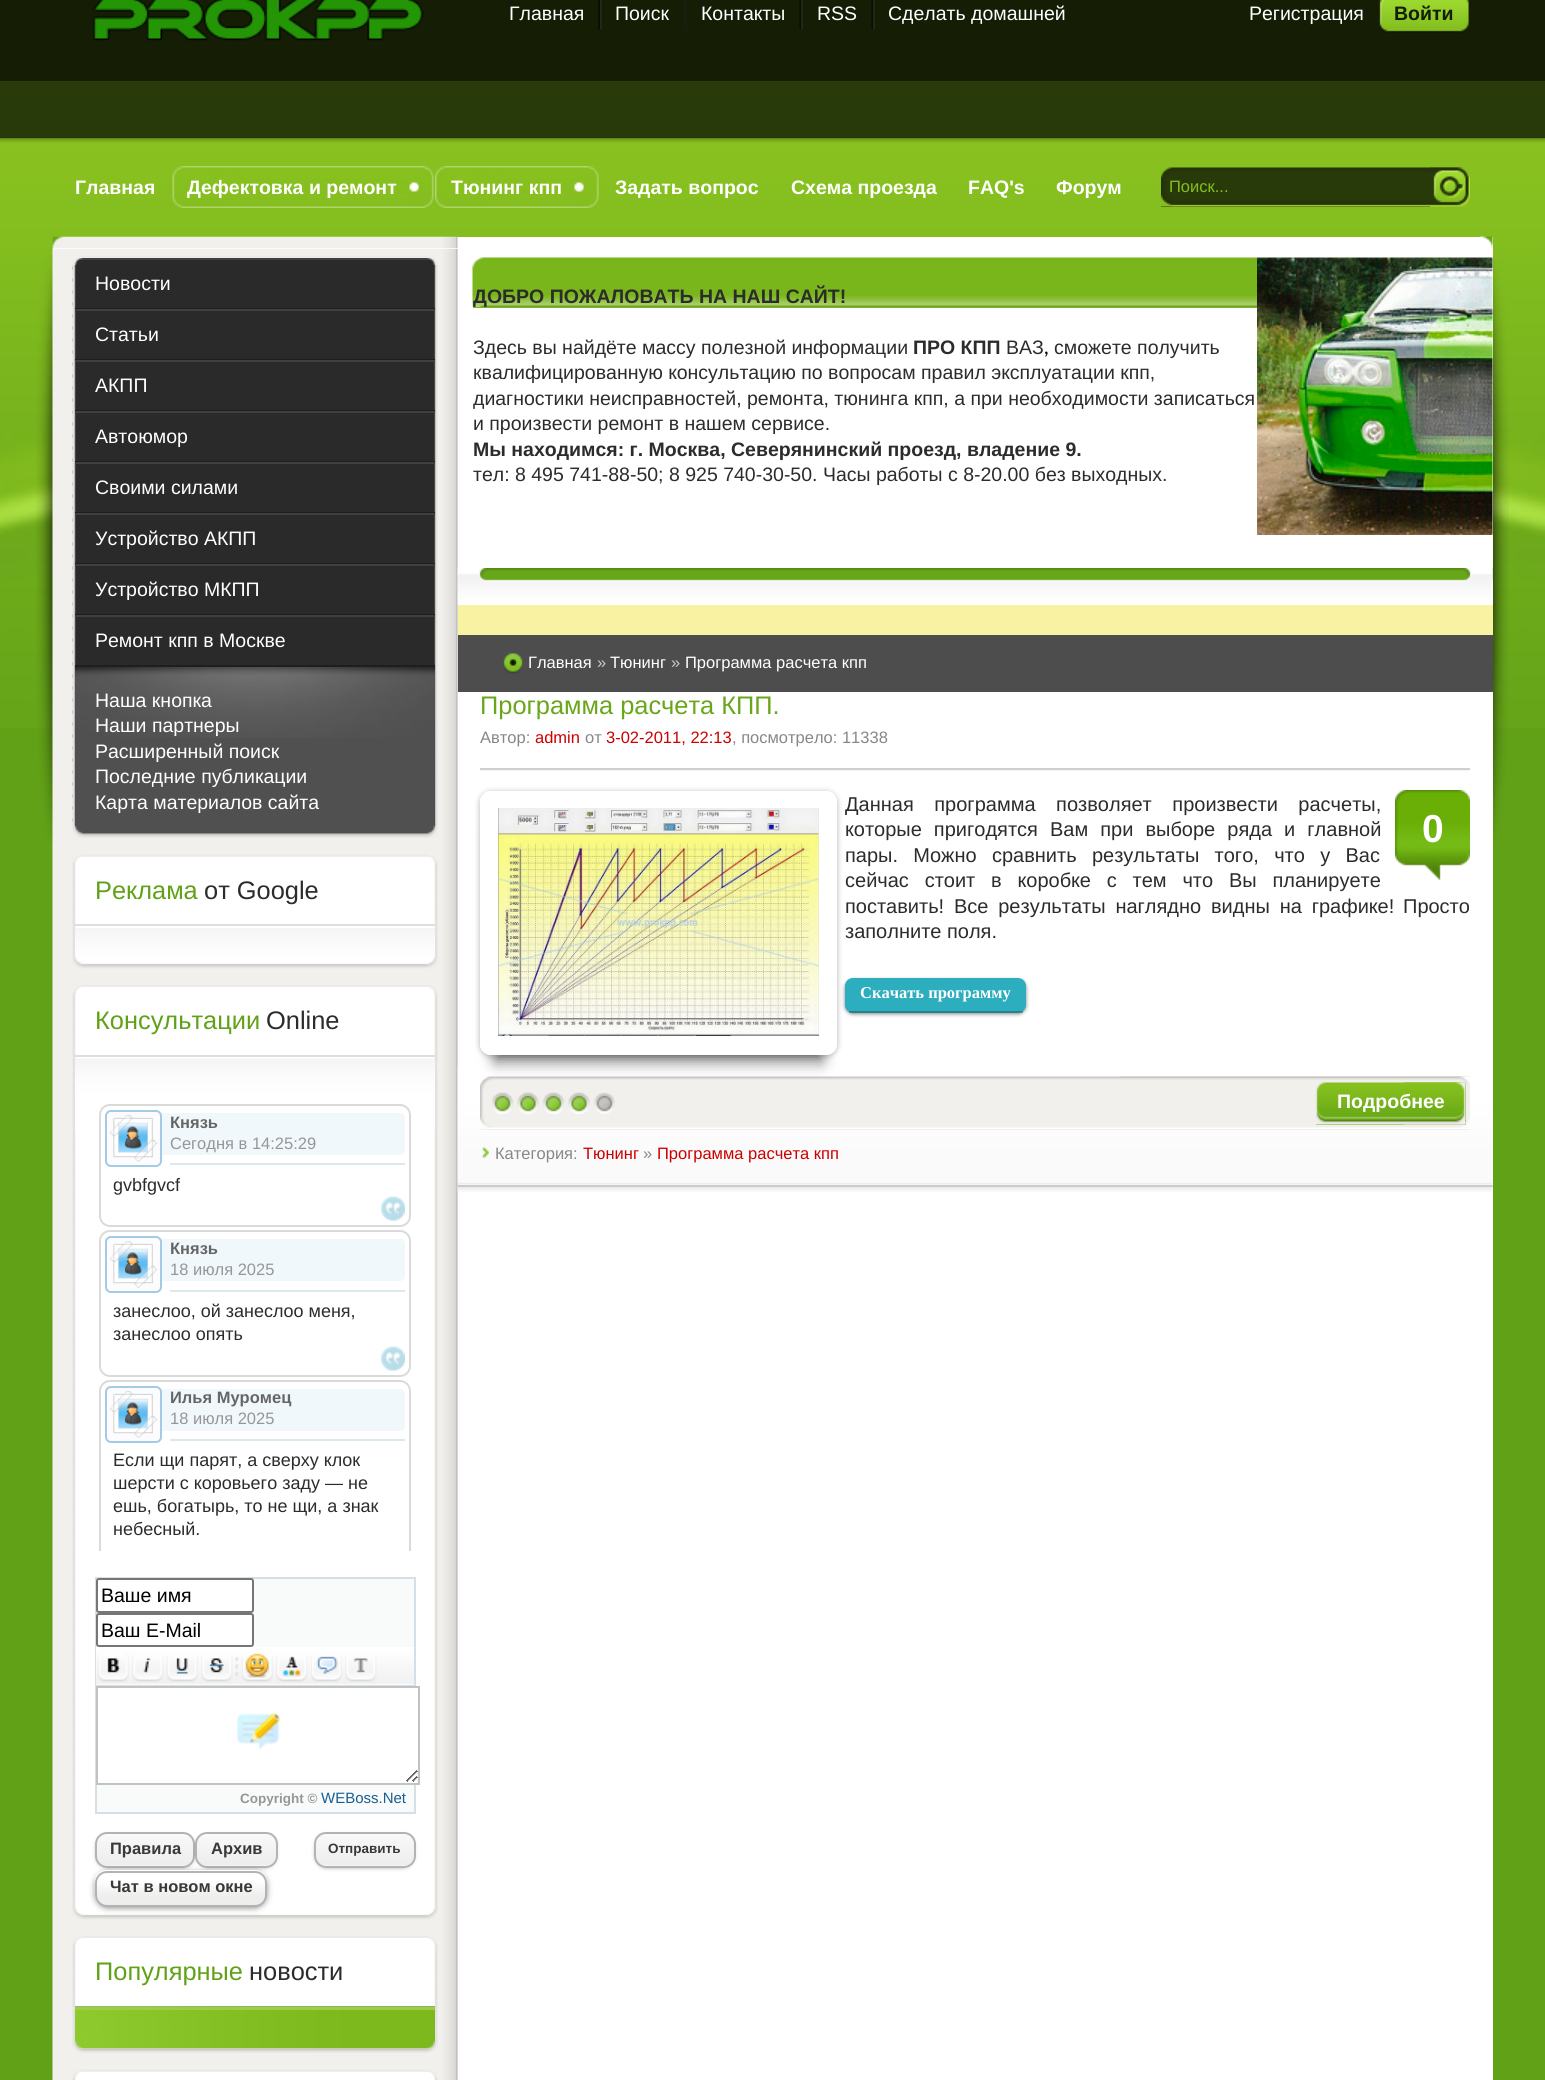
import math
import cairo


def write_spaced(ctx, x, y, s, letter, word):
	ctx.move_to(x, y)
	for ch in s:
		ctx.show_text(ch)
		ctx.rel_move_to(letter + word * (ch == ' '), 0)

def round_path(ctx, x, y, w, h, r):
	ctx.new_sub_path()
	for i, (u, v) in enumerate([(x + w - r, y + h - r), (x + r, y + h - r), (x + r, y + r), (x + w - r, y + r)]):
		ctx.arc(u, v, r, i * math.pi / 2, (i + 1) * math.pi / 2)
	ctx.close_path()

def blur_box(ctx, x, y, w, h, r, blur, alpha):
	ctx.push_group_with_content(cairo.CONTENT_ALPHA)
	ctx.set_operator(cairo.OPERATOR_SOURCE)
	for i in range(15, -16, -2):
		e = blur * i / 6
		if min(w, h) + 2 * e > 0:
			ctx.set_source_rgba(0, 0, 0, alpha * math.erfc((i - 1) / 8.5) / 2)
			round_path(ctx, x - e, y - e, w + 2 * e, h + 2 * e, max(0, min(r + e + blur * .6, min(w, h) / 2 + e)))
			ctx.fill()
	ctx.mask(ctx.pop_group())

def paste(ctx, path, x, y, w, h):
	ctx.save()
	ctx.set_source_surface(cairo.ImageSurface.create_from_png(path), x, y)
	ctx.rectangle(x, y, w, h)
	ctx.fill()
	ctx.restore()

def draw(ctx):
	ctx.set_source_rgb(0.38, 0.631, 0.09)
	ctx.paint()
	paste(ctx, 'media/1.png', 0, 0, 1545, 348)
	paste(ctx, 'media/2.png', 0, 348, 1545, 380)
	paste(ctx, 'media/3.png', 0, 137, 1545, 6)
	ctx.set_source_rgba(0, 0, 0, 0.85)
	ctx.rectangle(0, 0, 1545, 81)
	ctx.fill()
	paste(ctx, 'media/4.png', 93, 0, 331, 41)
	ctx.select_font_face('Liberation Sans')
	ctx.set_font_size(19.5)
	ctx.set_source_rgb(1, 1, 1)
	ctx.move_to(509, 20)
	ctx.show_text('Главная')
	paste(ctx, 'media/5.png', 598, 0, 4, 30)
	ctx.move_to(615, 20)
	ctx.show_text('Поиск')
	ctx.set_source_rgb(0.094, 0.114, 0.055)
	ctx.rectangle(684, 0, 3, 30)
	ctx.fill()
	ctx.set_source_rgb(1, 1, 1)
	ctx.move_to(701, 20)
	ctx.show_text('Контакты')
	paste(ctx, 'media/6.png', 799, 0, 4, 30)
	ctx.move_to(817, 20)
	ctx.show_text('RSS')
	paste(ctx, 'media/6.png', 871, 0, 4, 30)
	ctx.move_to(888, 20)
	ctx.show_text('Сделать домашней')
	ctx.move_to(1249, 20)
	ctx.show_text('Регистрация')
	paste(ctx, 'media/7.png', 1379, 0, 90, 33)
	ctx.select_font_face('Liberation Sans', cairo.FONT_SLANT_NORMAL, cairo.FONT_WEIGHT_BOLD)
	ctx.set_source_rgb(0.082, 0.118, 0.02)
	ctx.move_to(1394, 20)
	ctx.show_text('Войти')
	ctx.set_source_rgba(0, 0, 0, 0.7)
	ctx.rectangle(0, 81, 1545, 57)
	ctx.fill()
	ctx.set_source_rgb(1, 1, 1)
	ctx.move_to(75, 194)
	ctx.show_text('Главная')
	paste(ctx, 'media/8.png', 172, 166, 262, 42)
	paste(ctx, 'media/9.png', 409, 166, 25, 42)
	ctx.move_to(187, 194)
	ctx.show_text('Дефектовка и ремонт')
	paste(ctx, 'media/10.png', 435, 166, 164, 42)
	paste(ctx, 'media/11.png', 574, 166, 25, 42)
	for x, y, s in [
		(451, 194, 'Тюнинг кпп'),
		(615, 194, 'Задать вопрос'),
		(791, 194, 'Схема проезда'),
		(968, 194, 'FAQ\'s'),
		(1056, 194, 'Форум'),
	]:
		ctx.move_to(x, y)
		ctx.show_text(s)
	ctx.set_source_rgb(0.161, 0.227, 0.039)
	ctx.rectangle(1161, 206, 269, 1)
	ctx.fill()
	paste(ctx, 'media/12.png', 1161, 167, 309, 40)
	ctx.select_font_face('Liberation Sans')
	ctx.set_font_size(16.5)
	ctx.set_source_rgb(0.522, 0.749, 0.122)
	ctx.move_to(1169, 192)
	ctx.show_text('Поиск...')
	ctx.set_source_rgb(0.537, 0.773, 0.137)
	ctx.rectangle(1430, 206, 40, 1)
	ctx.fill()
	paste(ctx, 'media/13.png', 1429, 167, 41, 40)
	paste(ctx, 'media/14.png', 36, 255, 17, 587)
	paste(ctx, 'media/15.png', 1493, 260, 16, 582)
	ctx.set_source_rgb(0.945, 0.941, 0.929)
	ctx.rectangle(457, 249, 1, 1831)
	ctx.fill()
	paste(ctx, 'media/18.png', 52, 248, 406, 1832)
	ctx.set_source_rgb(1, 1, 1)
	ctx.rectangle(53, 237, 1440, 12)
	ctx.fill()
	paste(ctx, 'media/16.png', 1480, 236, 13, 13)
	paste(ctx, 'media/17.png', 52, 236, 406, 13)
	ctx.rectangle(458, 249, 1035, 1831)
	ctx.fill()
	ctx.set_source_rgb(0.165, 0.165, 0.165)
	ctx.rectangle(72, 260, 364, 570)
	ctx.fill()
	paste(ctx, 'media/19.png', 72, 260, 366, 570)
	ctx.set_source_rgb(0.251, 0.251, 0.251)
	ctx.rectangle(75, 258, 360, 2)
	ctx.fill()
	paste(ctx, 'media/20.png', 72, 256, 366, 9)
	ctx.set_source_rgb(0.118, 0.118, 0.118)
	ctx.rectangle(75, 308, 360, 1)
	ctx.fill()
	ctx.set_font_size(19.5)
	ctx.set_source_rgb(1, 1, 1)
	ctx.move_to(95, 290)
	ctx.show_text('Новости')
	ctx.set_source_rgb(0.251, 0.251, 0.251)
	ctx.rectangle(75, 309, 360, 2)
	ctx.fill()
	ctx.set_source_rgb(0.118, 0.118, 0.118)
	ctx.rectangle(75, 359, 360, 1)
	ctx.fill()
	ctx.set_source_rgb(1, 1, 1)
	ctx.move_to(95, 341)
	ctx.show_text('Статьи')
	ctx.set_source_rgb(0.251, 0.251, 0.251)
	ctx.rectangle(75, 360, 360, 2)
	ctx.fill()
	ctx.set_source_rgb(0.118, 0.118, 0.118)
	ctx.rectangle(75, 410, 360, 1)
	ctx.fill()
	ctx.set_source_rgb(1, 1, 1)
	ctx.move_to(95, 392)
	ctx.show_text('АКПП')
	ctx.set_source_rgb(0.251, 0.251, 0.251)
	ctx.rectangle(75, 411, 360, 2)
	ctx.fill()
	ctx.set_source_rgb(0.118, 0.118, 0.118)
	ctx.rectangle(75, 461, 360, 1)
	ctx.fill()
	ctx.set_source_rgb(1, 1, 1)
	ctx.move_to(95, 443)
	ctx.show_text('Автоюмор')
	ctx.set_source_rgb(0.251, 0.251, 0.251)
	ctx.rectangle(75, 462, 360, 2)
	ctx.fill()
	ctx.set_source_rgb(0.118, 0.118, 0.118)
	ctx.rectangle(75, 512, 360, 1)
	ctx.fill()
	ctx.set_source_rgb(1, 1, 1)
	ctx.move_to(95, 494)
	ctx.show_text('Своими силами')
	ctx.set_source_rgb(0.251, 0.251, 0.251)
	ctx.rectangle(75, 513, 360, 2)
	ctx.fill()
	ctx.set_source_rgb(0.118, 0.118, 0.118)
	ctx.rectangle(75, 563, 360, 1)
	ctx.fill()
	ctx.set_source_rgb(1, 1, 1)
	ctx.move_to(95, 545)
	ctx.show_text('Устройство АКПП')
	ctx.set_source_rgb(0.251, 0.251, 0.251)
	ctx.rectangle(75, 564, 360, 2)
	ctx.fill()
	ctx.set_source_rgb(0.118, 0.118, 0.118)
	ctx.rectangle(75, 614, 360, 1)
	ctx.fill()
	ctx.set_source_rgb(1, 1, 1)
	ctx.move_to(95, 596)
	ctx.show_text('Устройство МКПП')
	ctx.set_source_rgb(0.251, 0.251, 0.251)
	ctx.rectangle(75, 615, 360, 2)
	ctx.fill()
	ctx.set_source_rgb(0.118, 0.118, 0.118)
	ctx.rectangle(75, 665, 360, 2)
	ctx.fill()
	ctx.set_source_rgb(1, 1, 1)
	ctx.move_to(95, 647)
	ctx.show_text('Ремонт кпп в Москве')
	ctx.set_source_rgb(0.314, 0.314, 0.314)
	ctx.rectangle(75, 738, 360, 96)
	ctx.fill()
	paste(ctx, 'media/21.png', 75, 667, 360, 71)
	ctx.set_source_rgb(1, 1, 1)
	for x, y, s in [
		(95, 707, 'Наша кнопка'),
		(95, 732, 'Наши партнеры'),
		(95, 758, 'Расширенный поиск'),
		(95, 783, 'Последние публикации'),
		(95, 809, 'Карта материалов сайта'),
	]:
		ctx.move_to(x, y)
		ctx.show_text(s)
	paste(ctx, 'media/22.png', 72, 826, 366, 12)
	ctx.rectangle(72, 857, 364, 108)
	ctx.fill()
	paste(ctx, 'media/23.png', 72, 859, 366, 101)
	paste(ctx, 'media/24.png', 72, 854, 366, 9)
	ctx.set_source_rgb(0.871, 0.871, 0.871)
	ctx.rectangle(75, 924, 360, 2)
	ctx.fill()
	ctx.set_font_size(25.4)
	ctx.set_source_rgb(0.38, 0.631, 0.09)
	ctx.move_to(95, 899)
	ctx.show_text('Реклама')
	ctx.set_source_rgb(0.173, 0.173, 0.173)
	ctx.move_to(204, 899)
	ctx.show_text('от Google')
	paste(ctx, 'media/25.png', 75, 928, 360, 36)
	paste(ctx, 'media/26.png', 72, 956, 366, 13)
	ctx.set_source_rgb(1, 1, 1)
	ctx.rectangle(72, 987, 364, 929)
	ctx.fill()
	paste(ctx, 'media/27.png', 72, 989, 366, 923)
	ctx.set_source_rgb(0.871, 0.871, 0.871)
	ctx.rectangle(75, 1055, 360, 2)
	ctx.fill()
	ctx.set_source_rgb(0.38, 0.631, 0.09)
	ctx.move_to(95, 1029)
	ctx.show_text('Консультации')
	ctx.set_source_rgb(0.173, 0.173, 0.173)
	ctx.move_to(266, 1029)
	ctx.show_text('Online')
	paste(ctx, 'media/28.png', 75, 1058, 360, 72)
	paste(ctx, 'media/29.png', 72, 985, 366, 9)
	round_path(ctx, 100, 1105, 310, 121, 10)
	ctx.set_source_rgb(0.855, 0.855, 0.855)
	ctx.stroke()
	ctx.set_source_rgb(0.941, 0.969, 0.988)
	round_path(ctx, 105, 1113, 300, 42, 5)
	ctx.fill()
	ctx.set_source_rgb(0.988, 0.988, 1)
	round_path(ctx, 106, 1111, 55, 55, 5)
	ctx.fill_preserve()
	ctx.set_source_rgb(0.647, 0.792, 0.894)
	ctx.stroke()
	paste(ctx, 'media/30.png', 109, 1115, 49, 47)
	ctx.select_font_face('Liberation Sans', cairo.FONT_SLANT_NORMAL, cairo.FONT_WEIGHT_BOLD)
	ctx.set_font_size(16.5)
	ctx.set_source_rgb(0.4, 0.4, 0.4)
	ctx.move_to(170, 1128)
	ctx.show_text('Князь')
	ctx.select_font_face('Liberation Sans')
	ctx.set_source_rgb(0.588, 0.588, 0.588)
	ctx.move_to(170, 1149)
	ctx.show_text('Сегодня в 14:25:29')
	ctx.set_source_rgb(0.859, 0.91, 0.929)
	ctx.rectangle(170, 1163, 235, 2)
	ctx.fill()
	ctx.set_font_size(18)
	ctx.set_source_rgb(0.173, 0.173, 0.173)
	ctx.move_to(113, 1191)
	ctx.show_text('gvbfgvcf')
	paste(ctx, 'media/31.png', 381, 1196, 24, 25)
	round_path(ctx, 100, 1231, 310, 145, 10)
	ctx.set_source_rgb(0.855, 0.855, 0.855)
	ctx.stroke()
	ctx.set_source_rgb(0.941, 0.969, 0.988)
	round_path(ctx, 105, 1239, 300, 42, 5)
	ctx.fill()
	ctx.set_source_rgb(0.988, 0.988, 1)
	round_path(ctx, 106, 1237, 55, 55, 5)
	ctx.fill_preserve()
	ctx.set_source_rgb(0.647, 0.792, 0.894)
	ctx.stroke()
	paste(ctx, 'media/30.png', 109, 1241, 49, 47)
	ctx.select_font_face('Liberation Sans', cairo.FONT_SLANT_NORMAL, cairo.FONT_WEIGHT_BOLD)
	ctx.set_font_size(16.5)
	ctx.set_source_rgb(0.4, 0.4, 0.4)
	ctx.move_to(170, 1254)
	ctx.show_text('Князь')
	ctx.select_font_face('Liberation Sans')
	ctx.set_source_rgb(0.588, 0.588, 0.588)
	ctx.move_to(170, 1275)
	ctx.show_text('18 июля 2025')
	ctx.set_source_rgb(0.859, 0.91, 0.929)
	ctx.rectangle(170, 1290, 235, 2)
	ctx.fill()
	ctx.set_font_size(18)
	ctx.set_source_rgb(0.173, 0.173, 0.173)
	ctx.move_to(113, 1317)
	ctx.show_text('занеслоо, ой занеслоо меня,')
	ctx.move_to(113, 1340)
	ctx.show_text('занеслоо опять')
	paste(ctx, 'media/31.png', 381, 1346, 24, 25)
	ctx.set_source_rgb(0.976, 0.98, 0.98)
	ctx.rectangle(96, 1578, 319, 235)
	ctx.fill_preserve()
	ctx.set_source_rgb(0.831, 0.875, 0.91)
	ctx.stroke()
	ctx.set_source_rgb(1, 1, 1)
	round_path(ctx, 97, 1579, 156, 33, 2)
	ctx.fill_preserve()
	ctx.set_source_rgb(0.463, 0.463, 0.463)
	ctx.stroke()
	paste(ctx, 'media/32.png', 96, 1646, 318, 39)
	paste(ctx, 'media/33.png', 96, 1646, 33, 36)
	ctx.set_source_rgb(1, 1, 1)
	round_path(ctx, 97, 1614, 156, 32, 2)
	ctx.fill_preserve()
	ctx.set_source_rgb(0.463, 0.463, 0.463)
	ctx.stroke()
	ctx.set_source_rgb(0.831, 0.875, 0.91)
	ctx.rectangle(96, 1685, 318, 1)
	ctx.fill()
	paste(ctx, 'media/34.png', 107, 1658, 14, 15)
	paste(ctx, 'media/35.png', 132, 1656, 32, 26)
	paste(ctx, 'media/36.png', 143, 1658, 8, 15)
	paste(ctx, 'media/37.png', 166, 1656, 32, 26)
	paste(ctx, 'media/38.png', 176, 1658, 12, 16)
	paste(ctx, 'media/35.png', 201, 1656, 32, 26)
	paste(ctx, 'media/39.png', 209, 1658, 15, 15)
	paste(ctx, 'media/40.png', 235, 1657, 4, 20)
	paste(ctx, 'media/37.png', 241, 1656, 32, 26)
	paste(ctx, 'media/41.png', 245, 1653, 24, 25)
	paste(ctx, 'media/35.png', 276, 1656, 32, 26)
	paste(ctx, 'media/42.png', 282, 1656, 19, 21)
	paste(ctx, 'media/43.png', 311, 1656, 31, 26)
	paste(ctx, 'media/44.png', 316, 1656, 22, 18)
	paste(ctx, 'media/35.png', 345, 1656, 32, 26)
	paste(ctx, 'media/45.png', 353, 1658, 15, 15)
	ctx.save()
	ctx.rectangle(95, 1101, 321, 450)
	ctx.clip()
	round_path(ctx, 100, 1381, 310, 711, 10)
	ctx.set_source_rgb(0.855, 0.855, 0.855)
	ctx.stroke()
	ctx.restore()
	ctx.set_source_rgb(0.941, 0.969, 0.988)
	round_path(ctx, 105, 1389, 300, 42, 5)
	ctx.fill()
	ctx.set_source_rgb(0.988, 0.988, 1)
	round_path(ctx, 106, 1387, 55, 55, 5)
	ctx.fill_preserve()
	ctx.set_source_rgb(0.647, 0.792, 0.894)
	ctx.stroke()
	paste(ctx, 'media/30.png', 109, 1391, 49, 47)
	ctx.select_font_face('Liberation Sans', cairo.FONT_SLANT_NORMAL, cairo.FONT_WEIGHT_BOLD)
	ctx.set_font_size(16.5)
	ctx.set_source_rgb(0.4, 0.4, 0.4)
	ctx.move_to(170, 1403)
	ctx.show_text('Илья Муромец')
	ctx.select_font_face('Liberation Sans')
	ctx.set_source_rgb(0.588, 0.588, 0.588)
	ctx.move_to(170, 1424)
	ctx.show_text('18 июля 2025')
	ctx.set_source_rgb(0.859, 0.91, 0.929)
	ctx.rectangle(170, 1439, 235, 2)
	ctx.fill()
	ctx.set_font_size(18)
	ctx.set_source_rgb(0.173, 0.173, 0.173)
	for x, y, s in [
		(113, 1466, 'Если щи парят, а сверху клок'),
		(113, 1489, 'шерсти с коровьего заду — не'),
		(113, 1512, 'ешь, богатырь, то не щи, а знак'),
		(113, 1535, 'небесный.'),
	]:
		ctx.move_to(x, y)
		ctx.show_text(s)
	ctx.set_font_size(19.5)
	ctx.set_source_rgb(0, 0, 0)
	ctx.move_to(101, 1602)
	ctx.show_text('Ваше имя')
	ctx.move_to(101, 1637)
	ctx.show_text('Ваш E-Mail')
	ctx.set_source_rgb(1, 1, 1)
	ctx.rectangle(98, 1688, 318, 95)
	ctx.fill()
	paste(ctx, 'media/46.png', 236, 1712, 182, 70)
	ctx.rectangle(97, 1687, 322, 97)
	ctx.set_source_rgb(0.761, 0.761, 0.761)
	ctx.stroke()
	ctx.select_font_face('Liberation Sans', cairo.FONT_SLANT_NORMAL, cairo.FONT_WEIGHT_BOLD)
	ctx.set_font_size(13.5)
	ctx.set_source_rgb(0.588, 0.588, 0.588)
	ctx.move_to(240, 1803)
	ctx.show_text('Copyright ©')
	ctx.select_font_face('Liberation Sans')
	ctx.set_font_size(15)
	ctx.set_source_rgb(0.09, 0.376, 0.576)
	ctx.move_to(321, 1803)
	ctx.show_text('WEBoss.Net')
	ctx.set_source_rgb(0, 0, 0)
	blur_box(ctx, 99, 1838, 92, 27, 8, 3, 1)
	ctx.set_source_rgb(1, 1, 1)
	round_path(ctx, 95, 1832, 100, 36, 12)
	ctx.fill()
	paste(ctx, 'media/47.png', 95, 1832, 100, 34)
	round_path(ctx, 96, 1833, 98, 34, 11)
	ctx.set_source_rgb(0.702, 0.702, 0.702)
	ctx.stroke()
	ctx.select_font_face('Liberation Sans', cairo.FONT_SLANT_NORMAL, cairo.FONT_WEIGHT_BOLD)
	ctx.set_font_size(16.5)
	ctx.set_source_rgb(0.22, 0.22, 0.22)
	ctx.move_to(110, 1854)
	ctx.show_text('Правила')
	ctx.set_source_rgb(0, 0, 0)
	blur_box(ctx, 200, 1838, 73, 27, 8, 3, 1)
	ctx.set_source_rgb(1, 1, 1)
	round_path(ctx, 195, 1832, 83, 36, 12)
	ctx.fill()
	paste(ctx, 'media/48.png', 195, 1832, 83, 34)
	round_path(ctx, 196, 1833, 81, 34, 11)
	ctx.set_source_rgb(0.702, 0.702, 0.702)
	ctx.stroke()
	ctx.set_source_rgb(0.22, 0.22, 0.22)
	ctx.move_to(211, 1854)
	ctx.show_text('Архив')
	ctx.set_source_rgb(0, 0, 0)
	blur_box(ctx, 318, 1838, 93, 27, 8, 3, 1)
	ctx.set_source_rgb(1, 1, 1)
	round_path(ctx, 314, 1832, 102, 36, 12)
	ctx.fill()
	paste(ctx, 'media/49.png', 314, 1832, 102, 34)
	round_path(ctx, 315, 1833, 100, 34, 11)
	ctx.set_source_rgb(0.702, 0.702, 0.702)
	ctx.stroke()
	ctx.set_font_size(13.5)
	ctx.set_source_rgb(0.22, 0.22, 0.22)
	ctx.move_to(328, 1853)
	ctx.show_text('Отправить')
	ctx.set_source_rgb(0, 0, 0)
	blur_box(ctx, 98, 1875, 166, 30, 9, 4, 1)
	paste(ctx, 'media/50.png', 94, 1870, 173, 36)
	round_path(ctx, 96, 1872, 170, 34, 11)
	ctx.set_source_rgb(0.702, 0.702, 0.702)
	ctx.stroke()
	ctx.set_font_size(16.5)
	ctx.set_source_rgb(0.22, 0.22, 0.22)
	ctx.move_to(110, 1892)
	ctx.show_text('Чат в новом окне')
	paste(ctx, 'media/51.png', 72, 1907, 366, 13)
	ctx.set_source_rgb(1, 1, 1)
	ctx.rectangle(72, 1938, 364, 111)
	ctx.fill()
	paste(ctx, 'media/52.png', 72, 1940, 366, 105)
	paste(ctx, 'media/29.png', 72, 1936, 366, 9)
	ctx.set_source_rgb(0.651, 0.651, 0.651)
	ctx.rectangle(75, 2006, 360, 1)
	ctx.fill()
	ctx.select_font_face('Liberation Sans')
	ctx.set_font_size(25.4)
	ctx.set_source_rgb(0.38, 0.631, 0.09)
	ctx.move_to(95, 1980)
	ctx.show_text('Популярные')
	ctx.set_source_rgb(0.173, 0.173, 0.173)
	ctx.move_to(249, 1980)
	ctx.show_text('новости')
	paste(ctx, 'media/53.png', 75, 2006, 360, 43)
	ctx.set_source_rgb(0.604, 0.808, 0.271)
	ctx.rectangle(75, 2007, 360, 3)
	ctx.fill()
	paste(ctx, 'media/54.png', 72, 2041, 366, 12)
	ctx.set_source_rgb(1, 1, 1)
	ctx.rectangle(72, 2072, 366, 8)
	ctx.fill()
	paste(ctx, 'media/55.png', 72, 2074, 366, 6)
	paste(ctx, 'media/24.png', 72, 2069, 366, 9)
	paste(ctx, 'media/56.png', 457, 568, 1036, 36)
	paste(ctx, 'media/57.png', 1464, 568, 29, 14)
	ctx.set_source_rgb(0.475, 0.714, 0.106)
	ctx.rectangle(473, 307, 784, 1)
	ctx.fill()
	paste(ctx, 'media/58.png', 472, 257, 785, 50)
	ctx.select_font_face('Liberation Sans', cairo.FONT_SLANT_NORMAL, cairo.FONT_WEIGHT_BOLD)
	ctx.set_font_size(19.5)
	ctx.set_source_rgb(0.173, 0.173, 0.173)
	ctx.move_to(473, 303)
	ctx.show_text('ДОБРО ПОЖАЛОВАТЬ НА НАШ САЙТ!')
	ctx.select_font_face('Liberation Sans')
	ctx.move_to(473, 354)
	ctx.show_text('Здесь вы найдёте массу полезной информации')
	ctx.select_font_face('Liberation Sans', cairo.FONT_SLANT_NORMAL, cairo.FONT_WEIGHT_BOLD)
	ctx.move_to(913, 354)
	ctx.show_text('ПРО КПП')
	ctx.select_font_face('Liberation Sans')
	ctx.move_to(1006, 354)
	ctx.show_text('ВАЗ')
	ctx.select_font_face('Carlito', cairo.FONT_SLANT_ITALIC)
	ctx.set_font_size(22)
	ctx.set_source_rgb(0, 0, 0)
	ctx.move_to(1044, 354)
	ctx.show_text(',')
	ctx.select_font_face('Liberation Sans')
	ctx.set_font_size(19.5)
	ctx.set_source_rgb(0.173, 0.173, 0.173)
	for x, y, s in [
		(1054, 354, 'сможете получить'),
		(473, 379, 'квалифицированную консультацию по вопросам правил эксплуатации кпп,'),
		(473, 405, 'диагностики неисправностей, ремонта, тюнинга кпп, а при необходимости записаться'),
		(473, 430, 'и произвести ремонт в нашем сервисе.'),
	]:
		ctx.move_to(x, y)
		ctx.show_text(s)
	ctx.select_font_face('Liberation Sans', cairo.FONT_SLANT_NORMAL, cairo.FONT_WEIGHT_BOLD)
	ctx.move_to(473, 456)
	ctx.show_text('Мы находимся: г. Москва, Северянинский проезд, владение 9.')
	ctx.select_font_face('Liberation Sans')
	ctx.move_to(473, 481)
	ctx.show_text('тел: 8 495 741-88-50; 8 925 740-30-50. Часы работы с 8-20.00 без выходных.')
	paste(ctx, 'media/59.png', 1257, 257, 236, 278)
	ctx.set_source_rgb(0.969, 0.949, 0.635)
	ctx.rectangle(458, 605, 1035, 30)
	ctx.fill()
	ctx.set_source_rgb(0.302, 0.302, 0.302)
	ctx.rectangle(458, 635, 1035, 57)
	ctx.fill()
	paste(ctx, 'media/60.png', 503, 653, 20, 21)
	ctx.set_font_size(16.5)
	ctx.set_source_rgb(1, 1, 1)
	ctx.move_to(528, 668)
	ctx.show_text('Главная')
	ctx.set_source_rgb(0.792, 0.808, 0.761)
	ctx.move_to(597, 668)
	ctx.show_text('»')
	ctx.set_source_rgb(1, 1, 1)
	ctx.move_to(610, 668)
	ctx.show_text('Тюнинг')
	ctx.set_source_rgb(0.792, 0.808, 0.761)
	ctx.move_to(671, 668)
	ctx.show_text('»')
	ctx.set_source_rgb(1, 1, 1)
	ctx.move_to(685, 668)
	ctx.show_text('Программа расчета кпп')
	paste(ctx, 'media/61.png', 457, 1066, 1036, 119)
	paste(ctx, 'media/72.png', 457, 1186, 1036, 6)
	ctx.set_source_rgb(0.8, 0.8, 0.8)
	ctx.rectangle(458, 1185, 1035, 2)
	ctx.fill()
	ctx.set_font_size(25.4)
	ctx.set_source_rgb(0.408, 0.655, 0.098)
	ctx.move_to(480, 714)
	ctx.show_text('Программа расчета КПП.')
	ctx.set_font_size(16.5)
	ctx.set_source_rgb(0.533, 0.529, 0.522)
	ctx.move_to(480, 743)
	ctx.show_text('Автор:')
	ctx.set_source_rgb(0.8, 0, 0)
	ctx.move_to(535, 743)
	ctx.show_text('admin')
	ctx.set_source_rgb(0.533, 0.529, 0.522)
	ctx.move_to(585, 743)
	ctx.show_text('от')
	ctx.set_source_rgb(0.8, 0, 0)
	ctx.move_to(606, 743)
	ctx.show_text('3-02-2011, 22:13')
	ctx.set_source_rgb(0.533, 0.529, 0.522)
	ctx.move_to(732, 743)
	ctx.show_text(', посмотрело: 11338')
	paste(ctx, 'media/62.png', 480, 770, 990, 1)
	ctx.set_source_rgb(0.812, 0.812, 0.812)
	ctx.rectangle(480, 768, 990, 2)
	ctx.fill()
	ctx.save()
	ctx.set_fill_rule(cairo.FILL_RULE_EVEN_ODD)
	ctx.new_path()
	ctx.move_to(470, 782)
	ctx.line_to(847, 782)
	ctx.line_to(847, 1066)
	ctx.line_to(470, 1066)
	ctx.close_path()
	ctx.move_to(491, 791)
	ctx.line_to(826, 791)
	ctx.curve_to(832, 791, 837, 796, 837, 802)
	ctx.line_to(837, 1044)
	ctx.curve_to(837, 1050, 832, 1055, 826, 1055)
	ctx.line_to(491, 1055)
	ctx.curve_to(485, 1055, 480, 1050, 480, 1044)
	ctx.line_to(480, 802)
	ctx.curve_to(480, 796, 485, 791, 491, 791)
	ctx.close_path()
	ctx.clip()
	ctx.set_source_rgb(0, 0, 0)
	blur_box(ctx, 480, 792, 357, 264, 11, 3, 0.3)
	ctx.restore()
	paste(ctx, 'media/65.png', 480, 1076, 990, 53)
	ctx.save()
	ctx.set_fill_rule(cairo.FILL_RULE_EVEN_ODD)
	ctx.new_path()
	ctx.move_to(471, 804)
	ctx.line_to(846, 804)
	ctx.line_to(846, 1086)
	ctx.line_to(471, 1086)
	ctx.close_path()
	ctx.move_to(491, 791)
	ctx.line_to(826, 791)
	ctx.curve_to(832, 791, 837, 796, 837, 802)
	ctx.line_to(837, 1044)
	ctx.curve_to(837, 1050, 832, 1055, 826, 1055)
	ctx.line_to(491, 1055)
	ctx.curve_to(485, 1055, 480, 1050, 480, 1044)
	ctx.line_to(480, 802)
	ctx.curve_to(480, 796, 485, 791, 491, 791)
	ctx.close_path()
	ctx.clip()
	ctx.set_source_rgb(0, 0, 0)
	blur_box(ctx, 495, 828, 327, 234, 0, 7.5, 0.5)
	ctx.restore()
	round_path(ctx, 485.5, 796.5, 346, 253, 5.5)
	ctx.set_source_rgb(1, 1, 1)
	ctx.set_line_width(11)
	ctx.stroke()
	paste(ctx, 'media/63.png', 498, 808, 321, 228)
	ctx.set_font_size(20)
	ctx.set_source_rgb(0.173, 0.173, 0.173)
	write_spaced(ctx, 845, 811, 'Данная программа позволяет произвести расчеты,', 0, 15)
	write_spaced(ctx, 845, 836, 'которые пригодятся Вам при выборе ряда и главной', 0, 6.5)
	write_spaced(ctx, 845, 862, 'пары. Можно сравнить результаты того, что у Вас', 0, 9.75)
	write_spaced(ctx, 845, 887, 'сейчас стоит в коробке с тем что Вы планируете', 0, 10.25)
	write_spaced(ctx, 845, 913, 'поставить! Все результаты наглядно видны на графике!', 0, 4.25)
	ctx.move_to(1403, 913)
	ctx.show_text('Просто')
	ctx.move_to(845, 938)
	ctx.show_text('заполните поля.')
	ctx.set_source_rgb(0, 0, 0)
	blur_box(ctx, 845, 980, 181, 34, 8, 2, 0.5)
	ctx.set_source_rgb(0.176, 0.682, 0.749)
	round_path(ctx, 845, 978, 181, 35, 8)
	ctx.fill()
	ctx.set_source_rgba(0, 0, 0, 0.25)
	ctx.rectangle(849, 1011, 174, 2)
	ctx.fill()
	ctx.select_font_face('Liberation Serif', cairo.FONT_SLANT_NORMAL, cairo.FONT_WEIGHT_BOLD)
	ctx.set_font_size(16.5)
	ctx.set_source_rgb(1, 1, 1)
	ctx.move_to(860, 998)
	ctx.show_text('Скачать программу')
	paste(ctx, 'media/64.png', 1395, 790, 75, 90)
	ctx.select_font_face('Liberation Sans', cairo.FONT_SLANT_NORMAL, cairo.FONT_WEIGHT_BOLD)
	ctx.set_font_size(39)
	ctx.move_to(1422, 842)
	ctx.show_text('0')
	ctx.set_source_rgb(0.945, 0.941, 0.929)
	ctx.rectangle(480, 1129, 990, 1)
	ctx.fill()
	paste(ctx, 'media/66.png', 1120, 1076, 350, 52)
	paste(ctx, 'media/67.png', 492, 1092, 123, 22)
	paste(ctx, 'media/68.png', 492, 1092, 98, 22)
	ctx.set_source_rgb(0.463, 0.706, 0.102)
	ctx.rectangle(1316, 1083, 150, 42)
	ctx.fill()
	paste(ctx, 'media/69.png', 1315, 1082, 151, 43)
	paste(ctx, 'media/70.png', 1403, 1082, 63, 43)
	ctx.set_font_size(19.5)
	ctx.set_source_rgb(1, 1, 1)
	ctx.move_to(1337, 1108)
	ctx.show_text('Подробнее')
	paste(ctx, 'media/71.png', 481, 1147, 8, 11)
	ctx.select_font_face('Liberation Sans')
	ctx.set_font_size(16.5)
	ctx.set_source_rgb(0.533, 0.529, 0.522)
	ctx.move_to(495, 1159)
	ctx.show_text('Категория:')
	ctx.set_source_rgb(0.8, 0, 0)
	ctx.move_to(583, 1159)
	ctx.show_text('Тюнинг')
	ctx.set_source_rgb(0.533, 0.529, 0.522)
	ctx.move_to(643, 1159)
	ctx.show_text('»')
	ctx.set_source_rgb(0.8, 0, 0)
	ctx.move_to(657, 1159)
	ctx.show_text('Программа расчета кпп')


surface = cairo.ImageSurface(cairo.FORMAT_RGB24, 1545, 2080)
ctx = cairo.Context(surface)
options = cairo.FontOptions()
options.set_hint_metrics(cairo.HINT_METRICS_OFF)
options.set_hint_style(cairo.HINT_STYLE_NONE)
ctx.set_font_options(options)
ctx.set_miter_limit(4)
draw(ctx)
surface.write_to_png('image.png')
